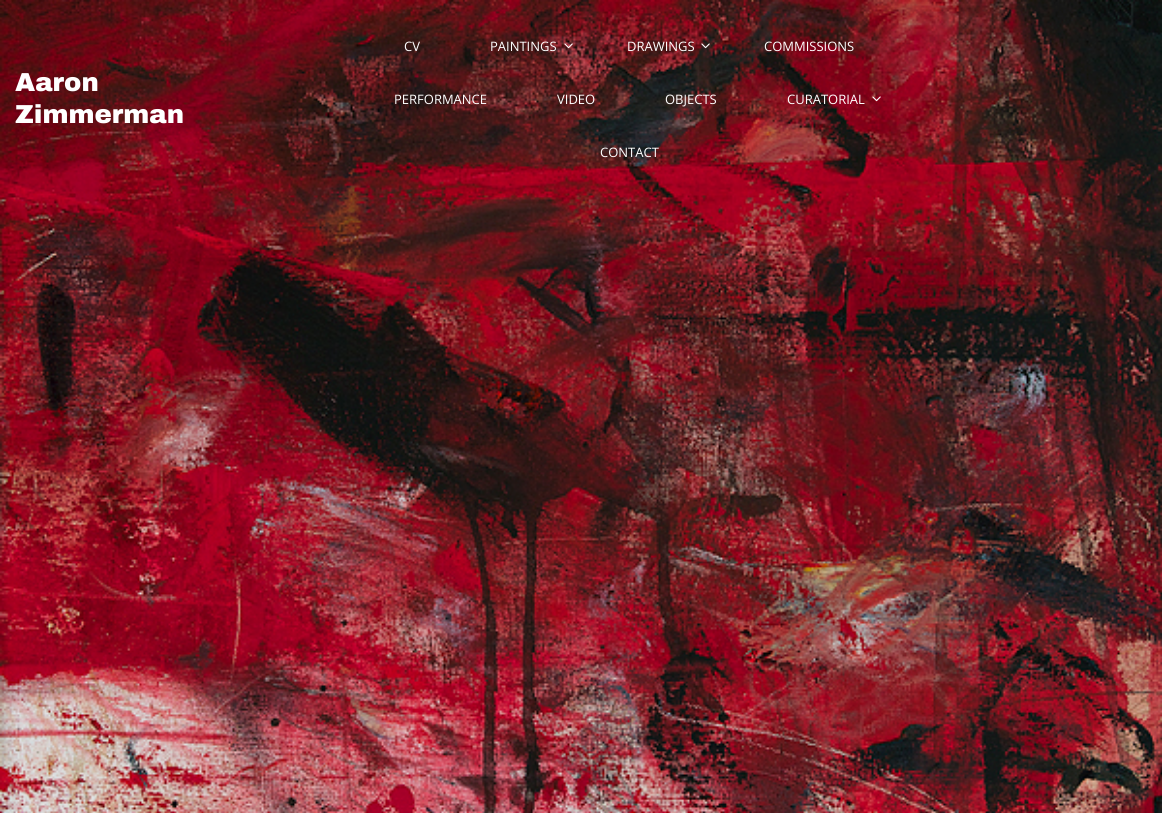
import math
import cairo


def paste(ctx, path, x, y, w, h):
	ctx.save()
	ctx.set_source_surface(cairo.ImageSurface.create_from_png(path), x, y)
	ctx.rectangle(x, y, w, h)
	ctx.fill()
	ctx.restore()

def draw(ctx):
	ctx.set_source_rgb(1, 1, 1)
	ctx.paint()
	paste(ctx, 'media/1.png', 0, 0, 1162, 813)
	ctx.select_font_face('Archivo Black Black')
	ctx.set_font_size(26)
	ctx.set_source_rgb(1, 1, 1)
	ctx.move_to(15, 91)
	ctx.show_text('Aaron')
	ctx.move_to(15, 123)
	ctx.show_text('Zimmerman')
	ctx.select_font_face('Open Sans')
	ctx.set_font_size(13)
	ctx.move_to(404, 51)
	ctx.show_text('CV')
	ctx.move_to(490, 51)
	ctx.show_text('PAINTINGS')
	paste(ctx, 'media/2.png', 564, 43, 9, 6)
	ctx.move_to(627, 51)
	ctx.show_text('DRAWINGS')
	paste(ctx, 'media/3.png', 701, 43, 9, 6)
	for x, y, s in [
		(764, 51, 'COMMISSIONS'),
		(394, 104, 'PERFORMANCE'),
		(557, 104, 'VIDEO'),
		(665, 104, 'OBJECTS'),
		(787, 104, 'CURATORIAL'),
	]:
		ctx.move_to(x, y)
		ctx.show_text(s)
	paste(ctx, 'media/4.png', 872, 96, 9, 6)
	ctx.move_to(600, 157)
	ctx.show_text('CONTACT')


surface = cairo.ImageSurface(cairo.FORMAT_RGB24, 1162, 813)
ctx = cairo.Context(surface)
options = cairo.FontOptions()
options.set_hint_metrics(cairo.HINT_METRICS_OFF)
options.set_hint_style(cairo.HINT_STYLE_NONE)
ctx.set_font_options(options)
ctx.set_miter_limit(4)
draw(ctx)
surface.write_to_png('image.png')
